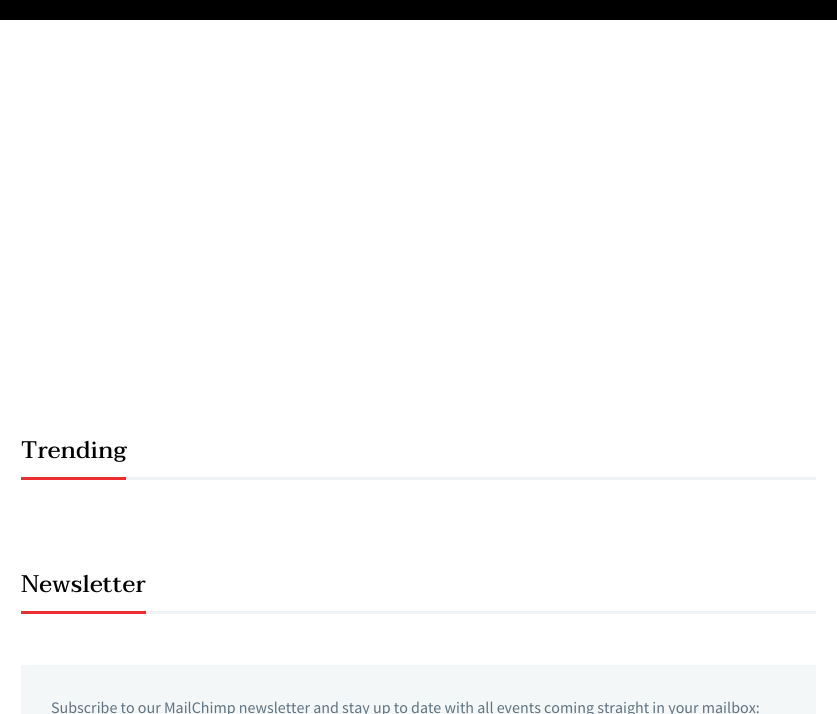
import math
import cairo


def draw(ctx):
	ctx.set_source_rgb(1, 1, 1)
	ctx.paint()
	ctx.set_source_rgb(0, 0, 0)
	ctx.rectangle(0, 0, 837, 20)
	ctx.fill()
	ctx.select_font_face('Taviraj Medium')
	ctx.set_font_size(24)
	ctx.move_to(21, 458)
	ctx.show_text('Trending')
	ctx.set_source_rgb(0.925, 0.176, 0.184)
	ctx.rectangle(21, 477, 105, 3)
	ctx.fill()
	ctx.set_source_rgb(0.929, 0.949, 0.957)
	ctx.rectangle(126, 477, 690, 3)
	ctx.fill()
	ctx.set_source_rgb(0, 0, 0)
	ctx.move_to(21, 592)
	ctx.show_text('Newsletter')
	ctx.set_source_rgb(0.925, 0.176, 0.184)
	ctx.rectangle(21, 611, 125, 3)
	ctx.fill()
	ctx.set_source_rgb(0.929, 0.949, 0.957)
	ctx.rectangle(146, 611, 670, 3)
	ctx.fill()
	ctx.set_source_rgb(0.957, 0.965, 0.969)
	ctx.rectangle(21, 665, 795, 49)
	ctx.fill()
	ctx.select_font_face('Source Sans Pro')
	ctx.set_font_size(16)
	ctx.set_source_rgb(0.373, 0.447, 0.498)
	ctx.move_to(51, 713)
	ctx.show_text('Subscribe to our MailChimp newsletter and stay up to date with all events coming straight in your mailbox:')


surface = cairo.ImageSurface(cairo.FORMAT_RGB24, 837, 714)
ctx = cairo.Context(surface)
options = cairo.FontOptions()
options.set_hint_metrics(cairo.HINT_METRICS_OFF)
options.set_hint_style(cairo.HINT_STYLE_NONE)
ctx.set_font_options(options)
ctx.set_miter_limit(4)
draw(ctx)
surface.write_to_png('image.png')
